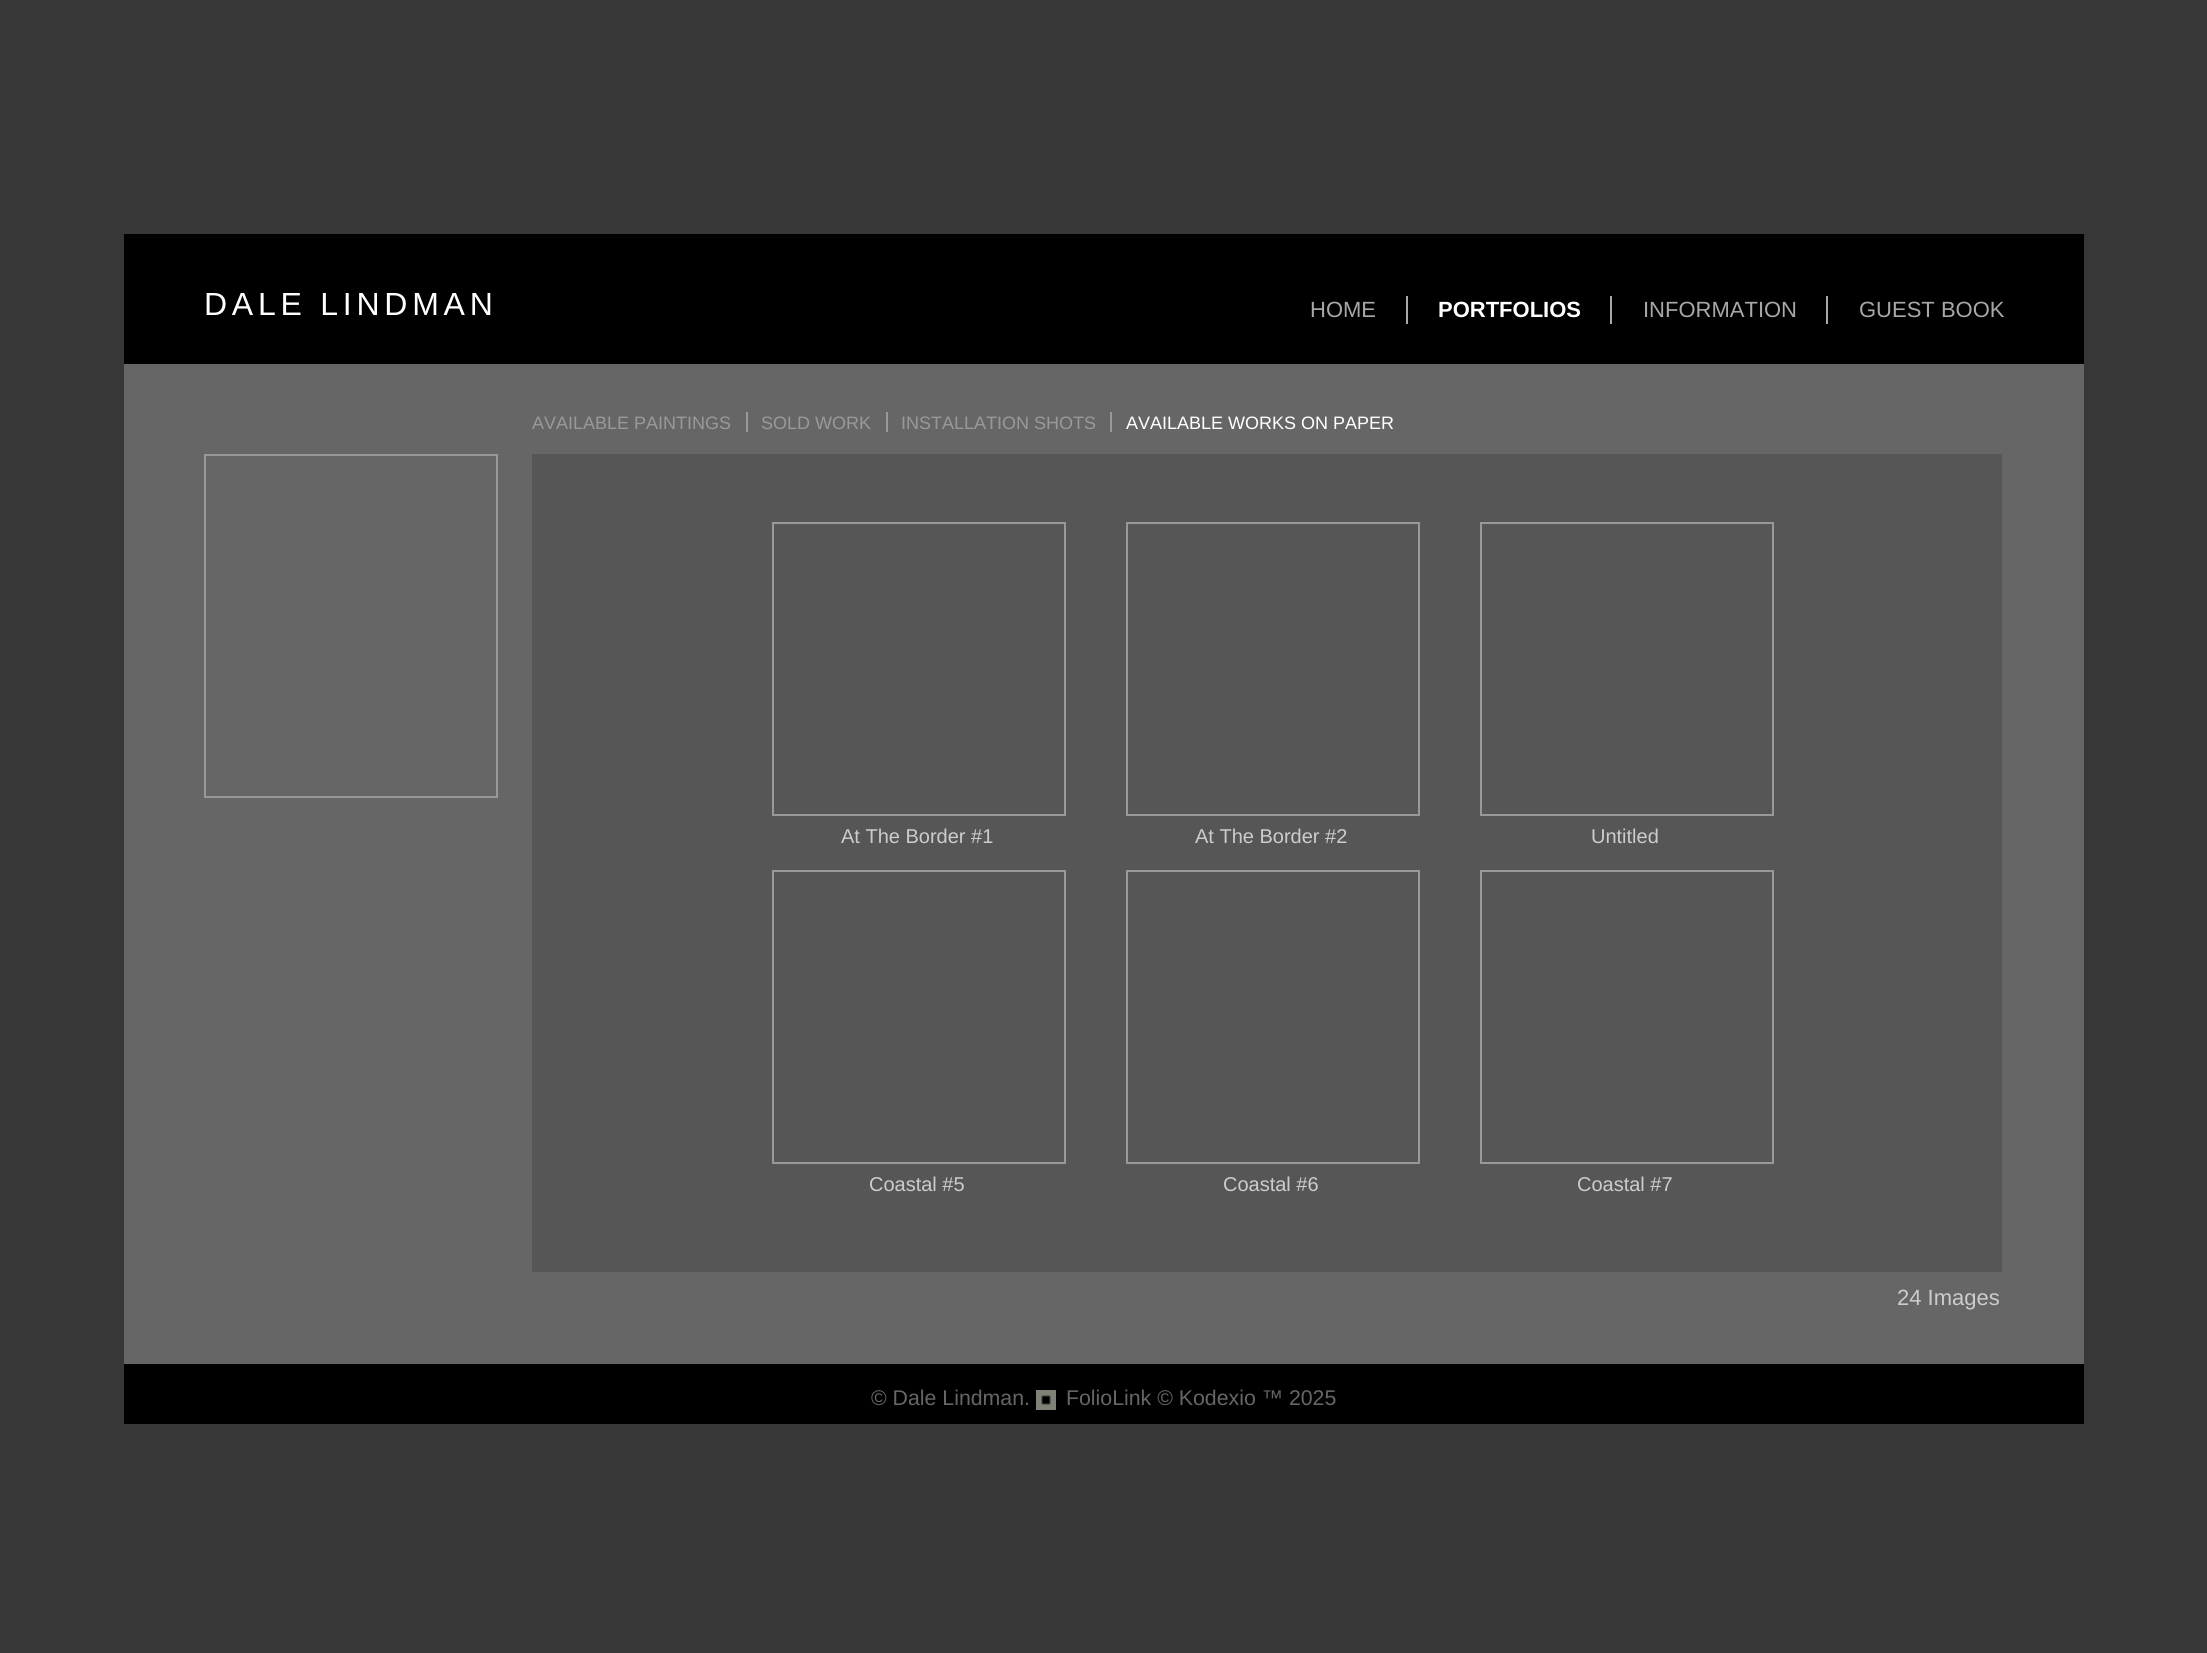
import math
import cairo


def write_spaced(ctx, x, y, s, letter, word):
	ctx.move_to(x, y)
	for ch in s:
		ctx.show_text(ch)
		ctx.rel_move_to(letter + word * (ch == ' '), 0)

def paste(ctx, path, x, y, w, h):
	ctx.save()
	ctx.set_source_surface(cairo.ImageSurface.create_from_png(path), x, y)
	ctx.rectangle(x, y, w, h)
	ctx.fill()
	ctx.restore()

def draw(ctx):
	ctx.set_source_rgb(0.216, 0.216, 0.216)
	ctx.paint()
	ctx.set_source_rgb(0, 0, 0)
	ctx.rectangle(124, 234, 1960, 130)
	ctx.fill()
	ctx.select_font_face('Liberation Sans')
	ctx.set_font_size(32)
	ctx.set_source_rgb(1, 1, 1)
	write_spaced(ctx, 204, 315, 'DALE LINDMAN', 4.75, 0)
	ctx.set_font_size(22)
	ctx.set_source_rgb(0.663, 0.659, 0.659)
	ctx.move_to(1310, 317)
	ctx.show_text('HOME')
	ctx.rectangle(1406, 296, 2, 28)
	ctx.fill()
	ctx.select_font_face('Liberation Sans', cairo.FONT_SLANT_NORMAL, cairo.FONT_WEIGHT_BOLD)
	ctx.set_source_rgb(1, 1, 1)
	ctx.move_to(1438, 317)
	ctx.show_text('PORTFOLIOS')
	ctx.set_source_rgb(0.663, 0.659, 0.659)
	ctx.rectangle(1610, 296, 2, 28)
	ctx.fill()
	ctx.select_font_face('Liberation Sans')
	ctx.move_to(1643, 317)
	ctx.show_text('INFORMATION')
	ctx.rectangle(1826, 296, 2, 28)
	ctx.fill()
	ctx.move_to(1859, 317)
	ctx.show_text('GUEST BOOK')
	ctx.set_source_rgb(0.4, 0.4, 0.4)
	ctx.rectangle(124, 364, 1960, 1000)
	ctx.fill()
	ctx.rectangle(205, 455, 292, 342)
	ctx.set_source_rgb(0.6, 0.6, 0.6)
	ctx.stroke()
	ctx.set_font_size(18)
	ctx.move_to(532, 429)
	ctx.show_text('AVAILABLE PAINTINGS')
	ctx.rectangle(746, 412, 2, 20)
	ctx.fill()
	ctx.move_to(761, 429)
	ctx.show_text('SOLD WORK')
	ctx.rectangle(886, 412, 2, 20)
	ctx.fill()
	ctx.move_to(901, 429)
	ctx.show_text('INSTALLATION SHOTS')
	ctx.rectangle(1110, 412, 2, 20)
	ctx.fill()
	ctx.set_source_rgb(1, 1, 1)
	ctx.move_to(1126, 429)
	ctx.show_text('AVAILABLE WORKS ON PAPER')
	ctx.set_source_rgb(0.337, 0.337, 0.337)
	ctx.rectangle(532, 454, 1470, 818)
	ctx.fill()
	ctx.rectangle(773, 523, 292, 292)
	ctx.set_source_rgb(0.6, 0.6, 0.6)
	ctx.stroke()
	ctx.set_font_size(20)
	ctx.set_source_rgb(0.8, 0.8, 0.8)
	ctx.move_to(841, 843)
	ctx.show_text('At The Border #1')
	ctx.rectangle(1127, 523, 292, 292)
	ctx.set_source_rgb(0.6, 0.6, 0.6)
	ctx.stroke()
	ctx.set_source_rgb(0.8, 0.8, 0.8)
	ctx.move_to(1195, 843)
	ctx.show_text('At The Border #2')
	ctx.rectangle(1481, 523, 292, 292)
	ctx.set_source_rgb(0.6, 0.6, 0.6)
	ctx.stroke()
	ctx.set_source_rgb(0.8, 0.8, 0.8)
	ctx.move_to(1591, 843)
	ctx.show_text('Untitled')
	ctx.rectangle(773, 871, 292, 292)
	ctx.set_source_rgb(0.6, 0.6, 0.6)
	ctx.stroke()
	ctx.set_source_rgb(0.8, 0.8, 0.8)
	ctx.move_to(869, 1191)
	ctx.show_text('Coastal #5')
	ctx.rectangle(1127, 871, 292, 292)
	ctx.set_source_rgb(0.6, 0.6, 0.6)
	ctx.stroke()
	ctx.set_source_rgb(0.8, 0.8, 0.8)
	ctx.move_to(1223, 1191)
	ctx.show_text('Coastal #6')
	ctx.rectangle(1481, 871, 292, 292)
	ctx.set_source_rgb(0.6, 0.6, 0.6)
	ctx.stroke()
	ctx.set_source_rgb(0.8, 0.8, 0.8)
	ctx.move_to(1577, 1191)
	ctx.show_text('Coastal #7')
	ctx.set_font_size(22)
	ctx.move_to(1897, 1305)
	ctx.show_text('24 Images')
	ctx.set_source_rgb(0, 0, 0)
	ctx.rectangle(124, 1364, 1960, 60)
	ctx.fill()
	ctx.set_font_size(21.3)
	ctx.set_source_rgb(0.4, 0.4, 0.4)
	ctx.move_to(871, 1405)
	ctx.show_text('© Dale Lindman.')
	paste(ctx, 'media/1.png', 1036, 1390, 20, 20)
	ctx.move_to(1066, 1405)
	ctx.show_text('FolioLink © Kodexio ™ 2025')


surface = cairo.ImageSurface(cairo.FORMAT_RGB24, 2207, 1653)
ctx = cairo.Context(surface)
options = cairo.FontOptions()
options.set_hint_metrics(cairo.HINT_METRICS_OFF)
options.set_hint_style(cairo.HINT_STYLE_NONE)
ctx.set_font_options(options)
ctx.set_miter_limit(4)
draw(ctx)
surface.write_to_png('image.png')
